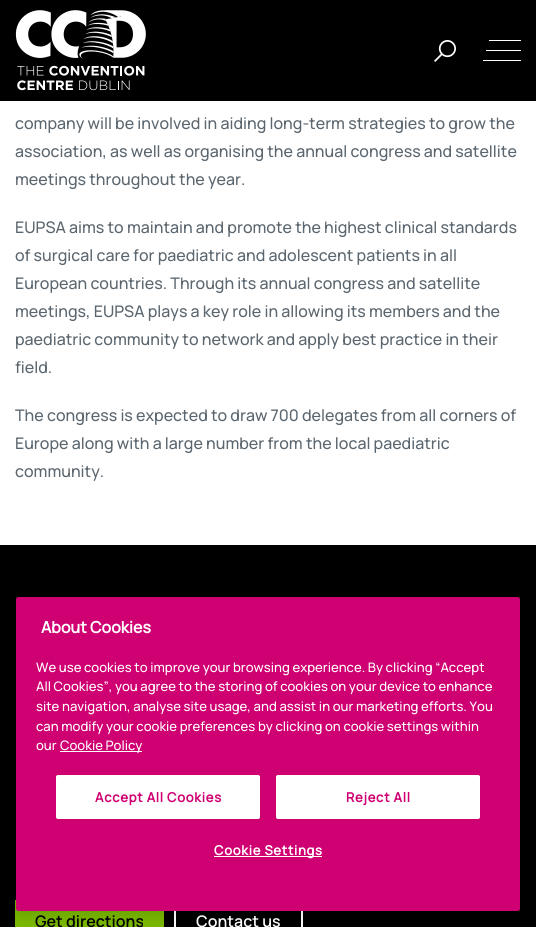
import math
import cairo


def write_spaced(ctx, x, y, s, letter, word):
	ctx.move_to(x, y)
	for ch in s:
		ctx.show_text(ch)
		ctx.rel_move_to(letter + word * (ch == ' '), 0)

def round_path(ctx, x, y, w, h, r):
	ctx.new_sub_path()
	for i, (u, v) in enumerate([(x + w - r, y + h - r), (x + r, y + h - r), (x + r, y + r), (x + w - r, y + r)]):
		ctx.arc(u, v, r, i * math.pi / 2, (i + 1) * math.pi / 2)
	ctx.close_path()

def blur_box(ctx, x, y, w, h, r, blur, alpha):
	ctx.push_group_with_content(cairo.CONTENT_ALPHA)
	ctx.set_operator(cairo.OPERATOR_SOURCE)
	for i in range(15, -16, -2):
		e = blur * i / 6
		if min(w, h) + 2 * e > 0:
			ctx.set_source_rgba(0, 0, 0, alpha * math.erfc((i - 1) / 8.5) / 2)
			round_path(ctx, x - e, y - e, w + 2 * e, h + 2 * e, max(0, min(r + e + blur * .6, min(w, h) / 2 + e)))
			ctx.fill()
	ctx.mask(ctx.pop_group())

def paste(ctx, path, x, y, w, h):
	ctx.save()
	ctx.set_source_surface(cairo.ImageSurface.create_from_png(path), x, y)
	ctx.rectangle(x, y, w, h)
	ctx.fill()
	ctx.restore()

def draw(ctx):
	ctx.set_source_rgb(1, 1, 1)
	ctx.paint()
	ctx.set_source_rgb(0, 0, 0)
	ctx.rectangle(0, 0, 536, 101)
	ctx.fill()
	paste(ctx, 'media/1.png', 15, 10, 131, 81)
	paste(ctx, 'media/2.png', 434, 40, 22, 22)
	ctx.set_source_rgb(1, 1, 1)
	ctx.rectangle(489, 40, 32, 1)
	ctx.rectangle(486, 50, 35, 1)
	ctx.rectangle(483, 60, 38, 1)
	ctx.fill()
	ctx.select_font_face('Manrope Medium')
	ctx.set_font_size(16)
	ctx.set_source_rgb(0.357, 0.4, 0.435)
	for x, y, s in [
		(15, 129, 'company will be involved in aiding long-term strategies to grow the'),
		(15, 157, 'association, as well as organising the annual congress and satellite'),
		(15, 185, 'meetings throughout the year.'),
		(15, 233, 'EUPSA aims to maintain and promote the highest clinical standards'),
		(15, 261, 'of surgical care for paediatric and adolescent patients in all'),
		(15, 289, 'European countries. Through its annual congress and satellite'),
		(15, 317, 'meetings, EUPSA plays a key role in allowing its members and the'),
		(15, 345, 'paediatric community to network and apply best practice in their'),
		(15, 373, 'field.'),
		(15, 421, 'The congress is expected to draw 700 delegates from all corners of'),
		(15, 449, 'Europe along with a large number from the local paediatric'),
		(15, 477, 'community.'),
	]:
		ctx.move_to(x, y)
		ctx.show_text(s)
	ctx.set_source_rgb(0, 0, 0)
	ctx.rectangle(0, 545, 536, 382)
	ctx.fill()
	ctx.set_source_rgb(0.478, 0.722, 0)
	ctx.rectangle(15, 900, 149, 27)
	ctx.fill()
	ctx.select_font_face('Manrope SemiBold')
	ctx.set_source_rgb(0, 0, 0)
	ctx.move_to(35, 927)
	ctx.show_text('Get directions')
	ctx.rectangle(175, 901, 127, 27)
	ctx.set_source_rgb(1, 1, 1)
	ctx.stroke()
	ctx.move_to(196, 927)
	ctx.show_text('Contact us')
	ctx.set_source_rgb(0, 0, 0)
	blur_box(ctx, 16, 597, 504, 314, 2.5, 9, 0.2)
	ctx.set_source_rgb(0.812, 0, 0.447)
	round_path(ctx, 16, 597, 504, 314, 2.5)
	ctx.fill()
	ctx.select_font_face('Manrope', cairo.FONT_SLANT_NORMAL, cairo.FONT_WEIGHT_BOLD)
	ctx.set_source_rgb(1, 1, 1)
	ctx.move_to(41, 633)
	ctx.show_text('About Cookies')
	ctx.select_font_face('Manrope Medium')
	ctx.set_font_size(13.1)
	for x, y, s in [
		(36, 672, 'We use cookies to improve your browsing experience. By clicking “Accept'),
		(36, 691, 'All Cookies”, you agree to the storing of cookies on your device to enhance'),
		(36, 711, 'site navigation, analyse site usage, and assist in our marketing efforts. You'),
		(36, 731, 'can modify your cookie preferences by clicking on cookie settings within'),
		(36, 750, 'our'),
	]:
		ctx.move_to(x, y)
		ctx.show_text(s)
	ctx.rectangle(60, 751, 82, 1)
	ctx.fill()
	ctx.move_to(60, 750)
	ctx.show_text('Cookie Policy')
	round_path(ctx, 56.5, 775.5, 203, 43, 1.5)
	ctx.fill_preserve()
	ctx.set_line_width(1)
	ctx.stroke()
	ctx.select_font_face('Manrope', cairo.FONT_SLANT_NORMAL, cairo.FONT_WEIGHT_BOLD)
	ctx.set_source_rgb(0.812, 0, 0.447)
	write_spaced(ctx, 95, 802, 'Accept All Cookies', 0.7, 0)
	ctx.set_source_rgb(1, 1, 1)
	round_path(ctx, 276.5, 775.5, 203, 43, 1.5)
	ctx.fill_preserve()
	ctx.stroke()
	ctx.set_source_rgb(0.812, 0, 0.447)
	write_spaced(ctx, 346, 802, 'Reject All', 0.7, 0)
	ctx.set_source_rgb(1, 1, 1)
	ctx.rectangle(214, 856, 108, 1)
	ctx.fill()
	write_spaced(ctx, 214, 855, 'Cookie Settings', 0.7, 0)


surface = cairo.ImageSurface(cairo.FORMAT_RGB24, 536, 927)
ctx = cairo.Context(surface)
options = cairo.FontOptions()
options.set_hint_metrics(cairo.HINT_METRICS_OFF)
options.set_hint_style(cairo.HINT_STYLE_NONE)
ctx.set_font_options(options)
ctx.set_miter_limit(4)
draw(ctx)
surface.write_to_png('image.png')
